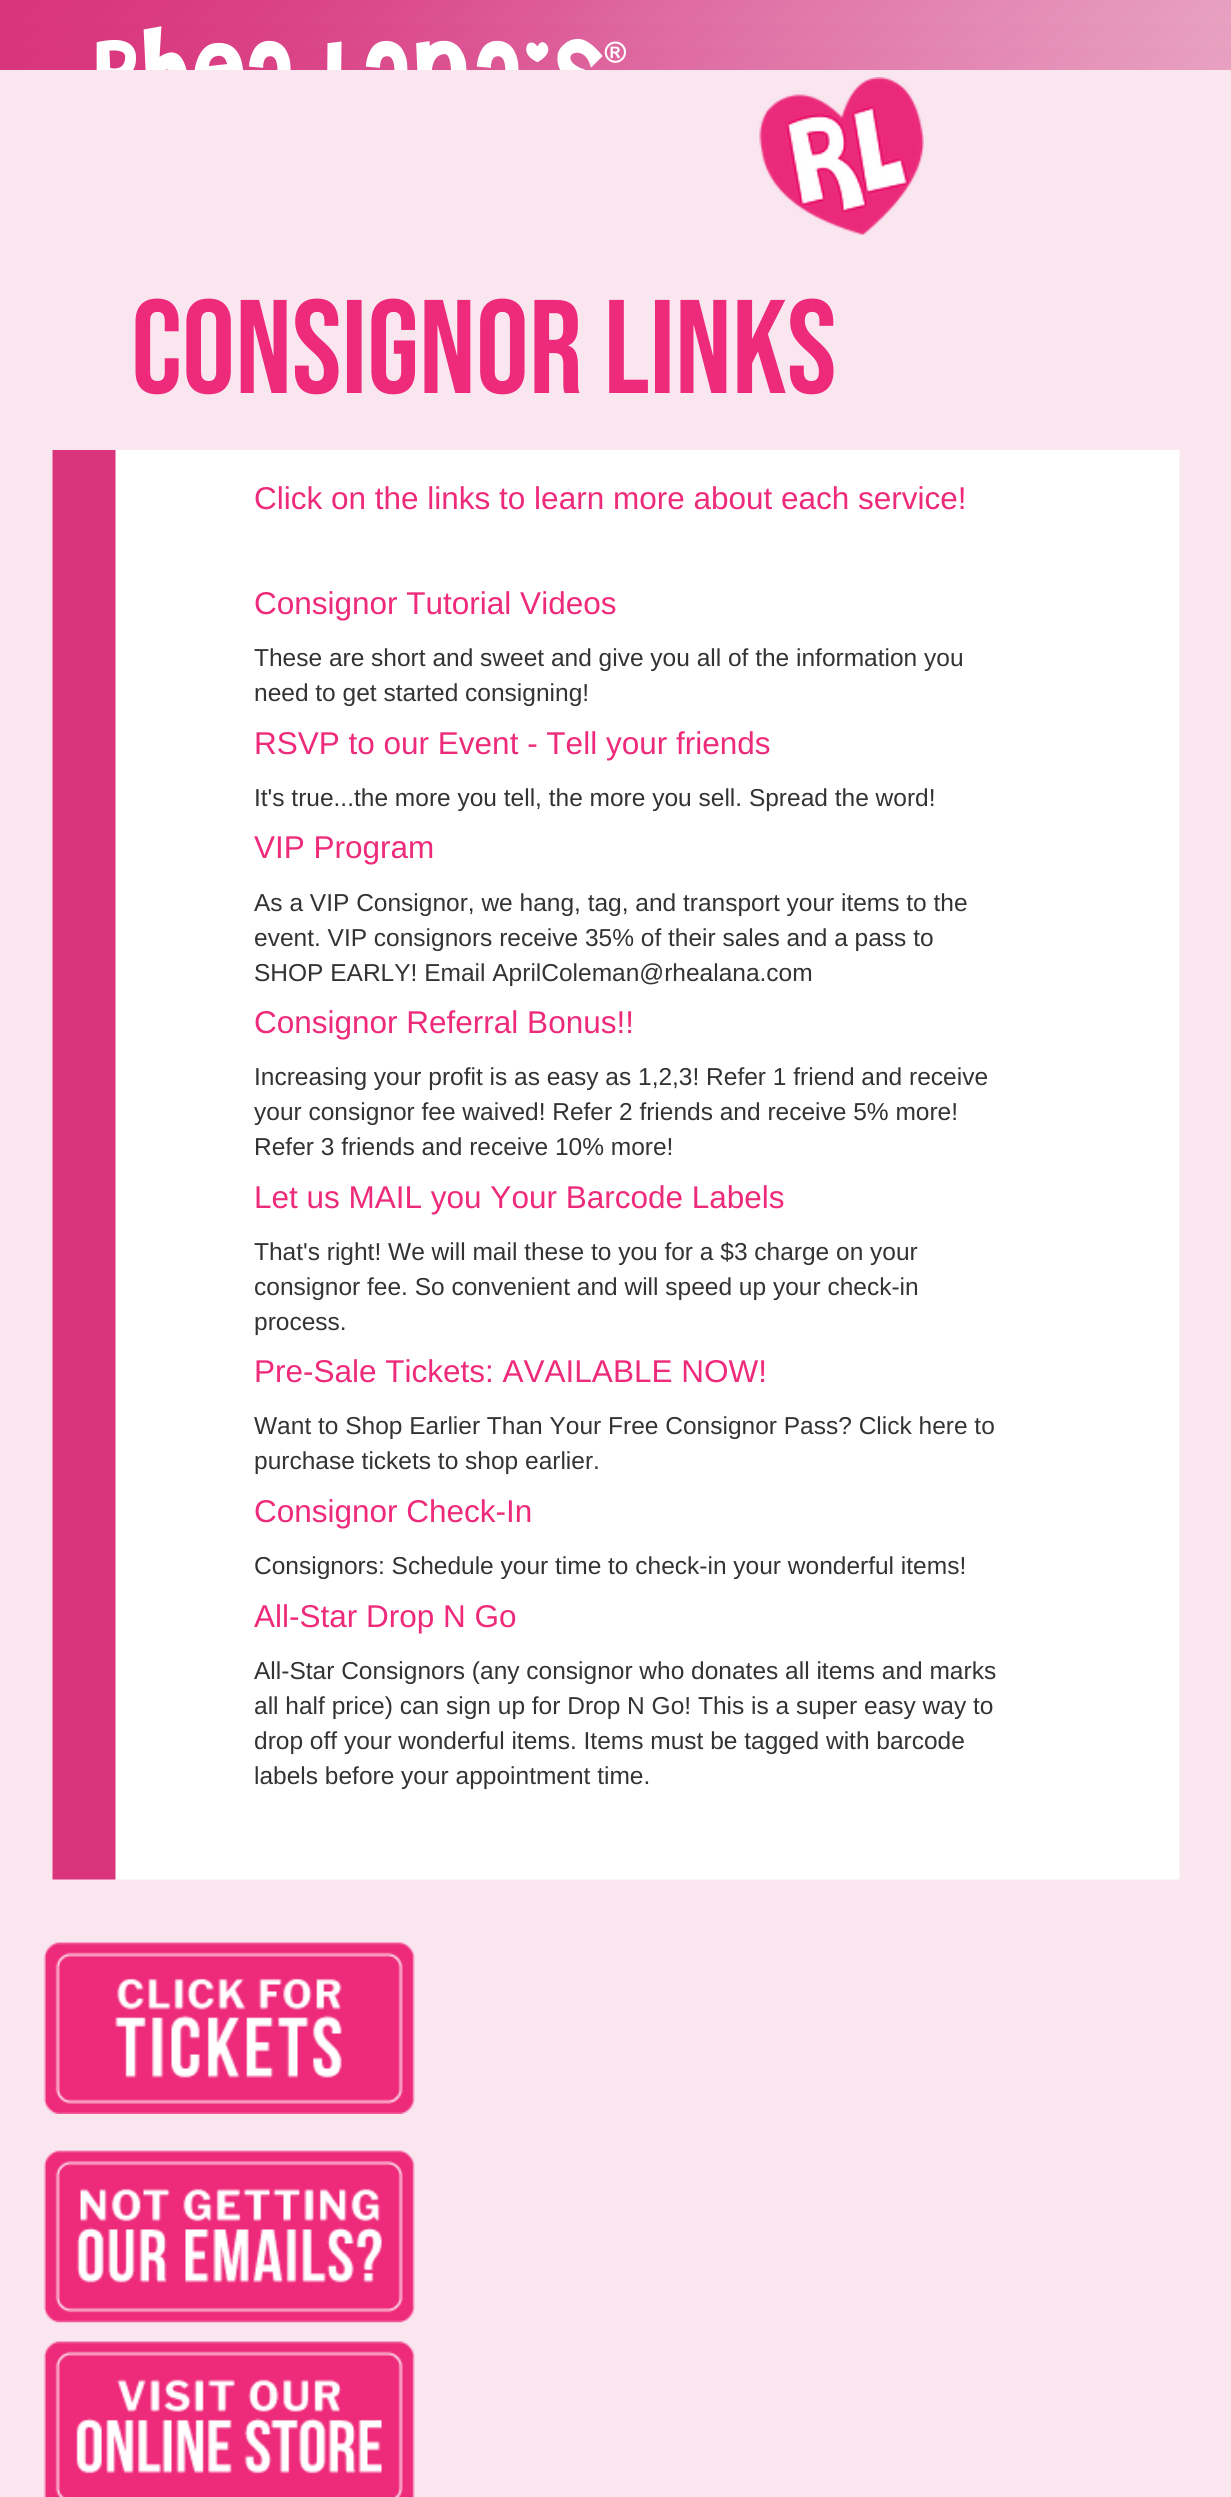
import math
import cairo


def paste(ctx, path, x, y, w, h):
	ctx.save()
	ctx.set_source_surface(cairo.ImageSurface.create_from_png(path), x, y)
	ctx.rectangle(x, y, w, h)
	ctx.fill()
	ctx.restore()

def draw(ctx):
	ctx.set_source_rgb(0.973, 0.902, 0.937)
	ctx.paint()
	paste(ctx, 'media/1.png', 0, 0, 1231, 70)
	paste(ctx, 'media/2.png', 96, 26, 531, 44)
	paste(ctx, 'media/3.png', 759, 77, 165, 158)
	ctx.select_font_face('Bebas Neue')
	ctx.set_font_size(133)
	ctx.set_source_rgb(0.933, 0.165, 0.482)
	ctx.move_to(131, 393)
	ctx.show_text('Consignor Links')
	paste(ctx, 'media/4.png', 52, 450, 1128, 1430)
	ctx.select_font_face('Liberation Sans')
	ctx.set_font_size(31.5)
	ctx.move_to(254, 509)
	ctx.show_text('Click on the links to learn more about each service!')
	ctx.move_to(254, 614)
	ctx.show_text('Consignor Tutorial Videos')
	ctx.set_font_size(24.5)
	ctx.set_source_rgb(0.2, 0.2, 0.2)
	ctx.move_to(254, 666)
	ctx.show_text('These are short and sweet and give you all of the information you')
	ctx.move_to(254, 701)
	ctx.show_text('need to get started consigning!')
	ctx.set_font_size(31.5)
	ctx.set_source_rgb(0.933, 0.165, 0.482)
	ctx.move_to(254, 754)
	ctx.show_text('RSVP to our Event - Tell your friends')
	ctx.set_font_size(24.5)
	ctx.set_source_rgb(0.2, 0.2, 0.2)
	ctx.move_to(254, 806)
	ctx.show_text('It\'s true...the more you tell, the more you sell. Spread the word!')
	ctx.set_font_size(31.5)
	ctx.set_source_rgb(0.933, 0.165, 0.482)
	ctx.move_to(254, 858)
	ctx.show_text('VIP Program')
	ctx.set_font_size(24.5)
	ctx.set_source_rgb(0.2, 0.2, 0.2)
	for x, y, s in [
		(254, 911, 'As a VIP Consignor, we hang, tag, and transport your items to the'),
		(254, 946, 'event. VIP consignors receive 35% of their sales and a pass to'),
		(254, 981, 'SHOP EARLY! Email AprilColeman@rhealana.com'),
	]:
		ctx.move_to(x, y)
		ctx.show_text(s)
	ctx.set_font_size(31.5)
	ctx.set_source_rgb(0.933, 0.165, 0.482)
	ctx.move_to(254, 1033)
	ctx.show_text('Consignor Referral Bonus!!')
	ctx.set_font_size(24.5)
	ctx.set_source_rgb(0.2, 0.2, 0.2)
	for x, y, s in [
		(254, 1085, 'Increasing your profit is as easy as 1,2,3! Refer 1 friend and receive'),
		(254, 1120, 'your consignor fee waived! Refer 2 friends and receive 5% more!'),
		(254, 1155, 'Refer 3 friends and receive 10% more!'),
	]:
		ctx.move_to(x, y)
		ctx.show_text(s)
	ctx.set_font_size(31.5)
	ctx.set_source_rgb(0.933, 0.165, 0.482)
	ctx.move_to(254, 1208)
	ctx.show_text('Let us MAIL you Your Barcode Labels')
	ctx.set_font_size(24.5)
	ctx.set_source_rgb(0.2, 0.2, 0.2)
	for x, y, s in [
		(254, 1260, 'That\'s right! We will mail these to you for a $3 charge on your'),
		(254, 1295, 'consignor fee. So convenient and will speed up your check-in'),
		(254, 1330, 'process.'),
	]:
		ctx.move_to(x, y)
		ctx.show_text(s)
	ctx.set_font_size(31.5)
	ctx.set_source_rgb(0.933, 0.165, 0.482)
	ctx.move_to(254, 1382)
	ctx.show_text('Pre-Sale Tickets: AVAILABLE NOW!')
	ctx.set_font_size(24.5)
	ctx.set_source_rgb(0.2, 0.2, 0.2)
	ctx.move_to(254, 1434)
	ctx.show_text('Want to Shop Earlier Than Your Free Consignor Pass? Click here to')
	ctx.move_to(254, 1469)
	ctx.show_text('purchase tickets to shop earlier.')
	ctx.set_font_size(31.5)
	ctx.set_source_rgb(0.933, 0.165, 0.482)
	ctx.move_to(254, 1522)
	ctx.show_text('Consignor Check-In')
	ctx.set_font_size(24.5)
	ctx.set_source_rgb(0.2, 0.2, 0.2)
	ctx.move_to(254, 1574)
	ctx.show_text('Consignors: Schedule your time to check-in your wonderful items!')
	ctx.set_font_size(31.5)
	ctx.set_source_rgb(0.933, 0.165, 0.482)
	ctx.move_to(254, 1627)
	ctx.show_text('All-Star Drop N Go')
	ctx.set_font_size(24.5)
	ctx.set_source_rgb(0.2, 0.2, 0.2)
	for x, y, s in [
		(254, 1679, 'All-Star Consignors (any consignor who donates all items and marks'),
		(254, 1714, 'all half price) can sign up for Drop N Go! This is a super easy way to'),
		(254, 1749, 'drop off your wonderful items. Items must be tagged with barcode'),
		(254, 1784, 'labels before your appointment time.'),
	]:
		ctx.move_to(x, y)
		ctx.show_text(s)
	paste(ctx, 'media/5.png', 43, 1942, 372, 172)
	paste(ctx, 'media/6.png', 43, 2150, 372, 173)
	paste(ctx, 'media/7.png', 43, 2341, 372, 156)


surface = cairo.ImageSurface(cairo.FORMAT_RGB24, 1231, 2497)
ctx = cairo.Context(surface)
options = cairo.FontOptions()
options.set_hint_metrics(cairo.HINT_METRICS_OFF)
options.set_hint_style(cairo.HINT_STYLE_NONE)
ctx.set_font_options(options)
ctx.set_miter_limit(4)
draw(ctx)
surface.write_to_png('image.png')
